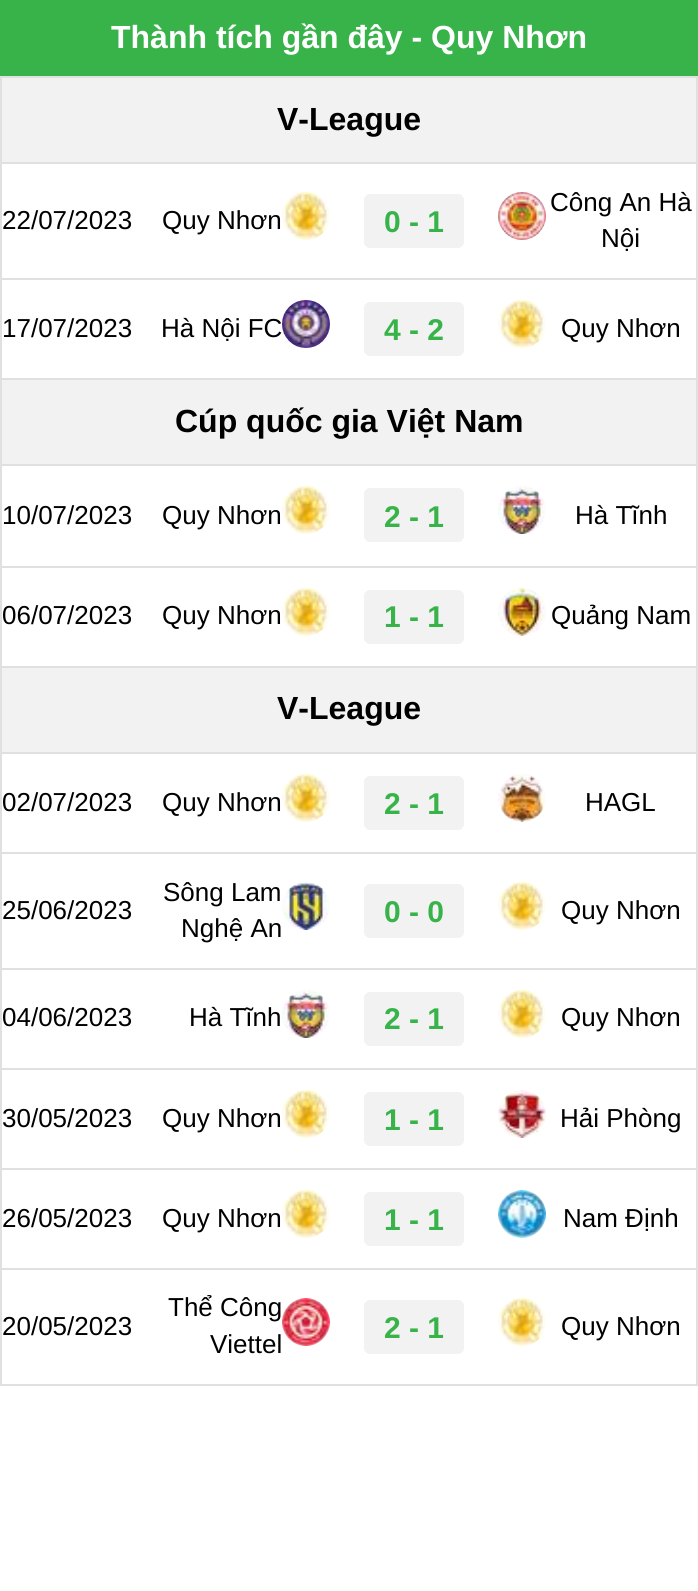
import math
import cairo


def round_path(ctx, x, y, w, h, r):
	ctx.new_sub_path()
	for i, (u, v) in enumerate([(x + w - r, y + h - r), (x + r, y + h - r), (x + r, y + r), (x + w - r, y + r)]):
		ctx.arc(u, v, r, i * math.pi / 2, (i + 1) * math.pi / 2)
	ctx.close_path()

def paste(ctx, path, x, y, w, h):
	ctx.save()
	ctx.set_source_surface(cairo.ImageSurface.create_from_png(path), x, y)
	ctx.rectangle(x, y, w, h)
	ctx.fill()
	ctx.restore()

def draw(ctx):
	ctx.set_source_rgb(1, 1, 1)
	ctx.paint()
	ctx.set_source_rgb(0.216, 0.702, 0.286)
	ctx.rectangle(0, 0, 698, 76)
	ctx.fill()
	ctx.select_font_face('Liberation Sans', cairo.FONT_SLANT_NORMAL, cairo.FONT_WEIGHT_BOLD)
	ctx.set_font_size(32)
	ctx.set_source_rgb(1, 1, 1)
	ctx.move_to(111, 48)
	ctx.show_text('Thành tích gần đây - Quy Nhơn')
	ctx.set_source_rgb(0.878, 0.878, 0.878)
	ctx.rectangle(0, 76, 698, 2)
	ctx.rectangle(696, 76, 2, 1310)
	ctx.rectangle(0, 1384, 698, 2)
	ctx.rectangle(0, 76, 2, 1310)
	ctx.fill()
	ctx.set_source_rgb(0.949, 0.949, 0.949)
	ctx.rectangle(2, 78, 694, 84)
	ctx.fill()
	ctx.set_source_rgb(0.878, 0.878, 0.878)
	ctx.rectangle(0, 162, 698, 2)
	ctx.fill()
	ctx.set_source_rgb(0, 0, 0)
	ctx.move_to(277, 130)
	ctx.show_text('V-League')
	ctx.set_source_rgb(0.878, 0.878, 0.878)
	ctx.rectangle(0, 278, 698, 2)
	ctx.fill()
	ctx.select_font_face('Liberation Sans')
	ctx.set_font_size(26)
	ctx.set_source_rgb(0, 0, 0)
	ctx.move_to(2, 229)
	ctx.show_text('22/07/2023')
	ctx.move_to(162, 229)
	ctx.show_text('Quy Nhơn')
	paste(ctx, 'media/1.png', 282, 192, 48, 48)
	ctx.set_source_rgb(0.949, 0.949, 0.949)
	round_path(ctx, 364, 194, 100, 54, 6)
	ctx.fill()
	ctx.select_font_face('Liberation Sans', cairo.FONT_SLANT_NORMAL, cairo.FONT_WEIGHT_BOLD)
	ctx.set_font_size(30)
	ctx.set_source_rgb(0.216, 0.702, 0.286)
	ctx.move_to(384, 232)
	ctx.show_text('0 - 1')
	paste(ctx, 'media/2.png', 498, 192, 48, 48)
	ctx.select_font_face('Liberation Sans')
	ctx.set_font_size(26)
	ctx.set_source_rgb(0, 0, 0)
	ctx.move_to(550, 211)
	ctx.show_text('Công An Hà')
	ctx.move_to(601, 247)
	ctx.show_text('Nội')
	ctx.set_source_rgb(0.878, 0.878, 0.878)
	ctx.rectangle(0, 378, 698, 2)
	ctx.fill()
	ctx.set_source_rgb(0, 0, 0)
	ctx.move_to(2, 337)
	ctx.show_text('17/07/2023')
	ctx.move_to(161, 337)
	ctx.show_text('Hà Nội FC')
	paste(ctx, 'media/3.png', 282, 300, 48, 48)
	ctx.set_source_rgb(0.949, 0.949, 0.949)
	round_path(ctx, 364, 302, 100, 54, 6)
	ctx.fill()
	ctx.select_font_face('Liberation Sans', cairo.FONT_SLANT_NORMAL, cairo.FONT_WEIGHT_BOLD)
	ctx.set_font_size(30)
	ctx.set_source_rgb(0.216, 0.702, 0.286)
	ctx.move_to(384, 340)
	ctx.show_text('4 - 2')
	paste(ctx, 'media/4.png', 498, 300, 48, 48)
	ctx.select_font_face('Liberation Sans')
	ctx.set_font_size(26)
	ctx.set_source_rgb(0, 0, 0)
	ctx.move_to(561, 337)
	ctx.show_text('Quy Nhơn')
	ctx.set_source_rgb(0.949, 0.949, 0.949)
	ctx.rectangle(2, 380, 694, 84)
	ctx.fill()
	ctx.set_source_rgb(0.878, 0.878, 0.878)
	ctx.rectangle(0, 464, 698, 2)
	ctx.fill()
	ctx.select_font_face('Liberation Sans', cairo.FONT_SLANT_NORMAL, cairo.FONT_WEIGHT_BOLD)
	ctx.set_font_size(32)
	ctx.set_source_rgb(0, 0, 0)
	ctx.move_to(175, 432)
	ctx.show_text('Cúp quốc gia Việt Nam')
	ctx.set_source_rgb(0.878, 0.878, 0.878)
	ctx.rectangle(0, 566, 698, 2)
	ctx.fill()
	ctx.select_font_face('Liberation Sans')
	ctx.set_font_size(26)
	ctx.set_source_rgb(0, 0, 0)
	ctx.move_to(2, 524)
	ctx.show_text('10/07/2023')
	ctx.move_to(162, 524)
	ctx.show_text('Quy Nhơn')
	paste(ctx, 'media/5.png', 282, 486, 48, 48)
	ctx.set_source_rgb(0.949, 0.949, 0.949)
	round_path(ctx, 364, 488, 100, 54, 6)
	ctx.fill()
	ctx.select_font_face('Liberation Sans', cairo.FONT_SLANT_NORMAL, cairo.FONT_WEIGHT_BOLD)
	ctx.set_font_size(30)
	ctx.set_source_rgb(0.216, 0.702, 0.286)
	ctx.move_to(384, 527)
	ctx.show_text('2 - 1')
	paste(ctx, 'media/6.png', 498, 486, 48, 48)
	ctx.select_font_face('Liberation Sans')
	ctx.set_font_size(26)
	ctx.set_source_rgb(0, 0, 0)
	ctx.move_to(575, 524)
	ctx.show_text('Hà Tĩnh')
	ctx.set_source_rgb(0.878, 0.878, 0.878)
	ctx.rectangle(0, 666, 698, 2)
	ctx.fill()
	ctx.set_source_rgb(0, 0, 0)
	ctx.move_to(2, 624)
	ctx.show_text('06/07/2023')
	ctx.move_to(162, 624)
	ctx.show_text('Quy Nhơn')
	paste(ctx, 'media/7.png', 282, 588, 48, 48)
	ctx.set_source_rgb(0.949, 0.949, 0.949)
	round_path(ctx, 364, 590, 100, 54, 6)
	ctx.fill()
	ctx.select_font_face('Liberation Sans', cairo.FONT_SLANT_NORMAL, cairo.FONT_WEIGHT_BOLD)
	ctx.set_font_size(30)
	ctx.set_source_rgb(0.216, 0.702, 0.286)
	ctx.move_to(384, 627)
	ctx.show_text('1 - 1')
	paste(ctx, 'media/8.png', 498, 588, 48, 48)
	ctx.select_font_face('Liberation Sans')
	ctx.set_font_size(26)
	ctx.set_source_rgb(0, 0, 0)
	ctx.move_to(551, 624)
	ctx.show_text('Quảng Nam')
	ctx.set_source_rgb(0.949, 0.949, 0.949)
	ctx.rectangle(2, 668, 694, 84)
	ctx.fill()
	ctx.set_source_rgb(0.878, 0.878, 0.878)
	ctx.rectangle(0, 752, 698, 2)
	ctx.fill()
	ctx.select_font_face('Liberation Sans', cairo.FONT_SLANT_NORMAL, cairo.FONT_WEIGHT_BOLD)
	ctx.set_font_size(32)
	ctx.set_source_rgb(0, 0, 0)
	ctx.move_to(277, 719)
	ctx.show_text('V-League')
	ctx.set_source_rgb(0.878, 0.878, 0.878)
	ctx.rectangle(0, 852, 698, 2)
	ctx.fill()
	ctx.select_font_face('Liberation Sans')
	ctx.set_font_size(26)
	ctx.set_source_rgb(0, 0, 0)
	ctx.move_to(2, 811)
	ctx.show_text('02/07/2023')
	ctx.move_to(162, 811)
	ctx.show_text('Quy Nhơn')
	paste(ctx, 'media/9.png', 282, 774, 48, 48)
	ctx.set_source_rgb(0.949, 0.949, 0.949)
	round_path(ctx, 364, 776, 100, 54, 6)
	ctx.fill()
	ctx.select_font_face('Liberation Sans', cairo.FONT_SLANT_NORMAL, cairo.FONT_WEIGHT_BOLD)
	ctx.set_font_size(30)
	ctx.set_source_rgb(0.216, 0.702, 0.286)
	ctx.move_to(384, 814)
	ctx.show_text('2 - 1')
	paste(ctx, 'media/10.png', 498, 774, 48, 48)
	ctx.select_font_face('Liberation Sans')
	ctx.set_font_size(26)
	ctx.set_source_rgb(0, 0, 0)
	ctx.move_to(585, 811)
	ctx.show_text('HAGL')
	ctx.set_source_rgb(0.878, 0.878, 0.878)
	ctx.rectangle(0, 968, 698, 2)
	ctx.fill()
	ctx.set_source_rgb(0, 0, 0)
	for x, y, s in [
		(2, 919, '25/06/2023'),
		(163, 901, 'Sông Lam'),
		(181, 937, 'Nghệ An'),
	]:
		ctx.move_to(x, y)
		ctx.show_text(s)
	paste(ctx, 'media/11.png', 282, 882, 48, 48)
	ctx.set_source_rgb(0.949, 0.949, 0.949)
	round_path(ctx, 364, 884, 100, 54, 6)
	ctx.fill()
	ctx.select_font_face('Liberation Sans', cairo.FONT_SLANT_NORMAL, cairo.FONT_WEIGHT_BOLD)
	ctx.set_font_size(30)
	ctx.set_source_rgb(0.216, 0.702, 0.286)
	ctx.move_to(384, 922)
	ctx.show_text('0 - 0')
	paste(ctx, 'media/4.png', 498, 882, 48, 48)
	ctx.select_font_face('Liberation Sans')
	ctx.set_font_size(26)
	ctx.set_source_rgb(0, 0, 0)
	ctx.move_to(561, 919)
	ctx.show_text('Quy Nhơn')
	ctx.set_source_rgb(0.878, 0.878, 0.878)
	ctx.rectangle(0, 1068, 698, 2)
	ctx.fill()
	ctx.set_source_rgb(0, 0, 0)
	ctx.move_to(2, 1026)
	ctx.show_text('04/06/2023')
	ctx.move_to(189, 1026)
	ctx.show_text('Hà Tĩnh')
	paste(ctx, 'media/12.png', 282, 990, 48, 48)
	ctx.set_source_rgb(0.949, 0.949, 0.949)
	round_path(ctx, 364, 992, 100, 54, 6)
	ctx.fill()
	ctx.select_font_face('Liberation Sans', cairo.FONT_SLANT_NORMAL, cairo.FONT_WEIGHT_BOLD)
	ctx.set_font_size(30)
	ctx.set_source_rgb(0.216, 0.702, 0.286)
	ctx.move_to(384, 1029)
	ctx.show_text('2 - 1')
	paste(ctx, 'media/13.png', 498, 990, 48, 48)
	ctx.select_font_face('Liberation Sans')
	ctx.set_font_size(26)
	ctx.set_source_rgb(0, 0, 0)
	ctx.move_to(561, 1026)
	ctx.show_text('Quy Nhơn')
	ctx.set_source_rgb(0.878, 0.878, 0.878)
	ctx.rectangle(0, 1168, 698, 2)
	ctx.fill()
	ctx.set_source_rgb(0, 0, 0)
	ctx.move_to(2, 1127)
	ctx.show_text('30/05/2023')
	ctx.move_to(162, 1127)
	ctx.show_text('Quy Nhơn')
	paste(ctx, 'media/7.png', 282, 1090, 48, 48)
	ctx.set_source_rgb(0.949, 0.949, 0.949)
	round_path(ctx, 364, 1092, 100, 54, 6)
	ctx.fill()
	ctx.select_font_face('Liberation Sans', cairo.FONT_SLANT_NORMAL, cairo.FONT_WEIGHT_BOLD)
	ctx.set_font_size(30)
	ctx.set_source_rgb(0.216, 0.702, 0.286)
	ctx.move_to(384, 1130)
	ctx.show_text('1 - 1')
	paste(ctx, 'media/14.png', 498, 1090, 48, 48)
	ctx.select_font_face('Liberation Sans')
	ctx.set_font_size(26)
	ctx.set_source_rgb(0, 0, 0)
	ctx.move_to(560, 1127)
	ctx.show_text('Hải Phòng')
	ctx.set_source_rgb(0.878, 0.878, 0.878)
	ctx.rectangle(0, 1268, 698, 2)
	ctx.fill()
	ctx.set_source_rgb(0, 0, 0)
	ctx.move_to(2, 1227)
	ctx.show_text('26/05/2023')
	ctx.move_to(162, 1227)
	ctx.show_text('Quy Nhơn')
	paste(ctx, 'media/15.png', 282, 1190, 48, 48)
	ctx.set_source_rgb(0.949, 0.949, 0.949)
	round_path(ctx, 364, 1192, 100, 54, 6)
	ctx.fill()
	ctx.select_font_face('Liberation Sans', cairo.FONT_SLANT_NORMAL, cairo.FONT_WEIGHT_BOLD)
	ctx.set_font_size(30)
	ctx.set_source_rgb(0.216, 0.702, 0.286)
	ctx.move_to(384, 1230)
	ctx.show_text('1 - 1')
	paste(ctx, 'media/16.png', 498, 1190, 48, 48)
	ctx.select_font_face('Liberation Sans')
	ctx.set_font_size(26)
	ctx.set_source_rgb(0, 0, 0)
	for x, y, s in [
		(563, 1227, 'Nam Định'),
		(2, 1335, '20/05/2023'),
		(168, 1316, 'Thể Công'),
		(210, 1353, 'Viettel'),
	]:
		ctx.move_to(x, y)
		ctx.show_text(s)
	paste(ctx, 'media/17.png', 282, 1298, 48, 48)
	ctx.set_source_rgb(0.949, 0.949, 0.949)
	round_path(ctx, 364, 1300, 100, 54, 6)
	ctx.fill()
	ctx.select_font_face('Liberation Sans', cairo.FONT_SLANT_NORMAL, cairo.FONT_WEIGHT_BOLD)
	ctx.set_font_size(30)
	ctx.set_source_rgb(0.216, 0.702, 0.286)
	ctx.move_to(384, 1338)
	ctx.show_text('2 - 1')
	paste(ctx, 'media/18.png', 498, 1298, 48, 48)
	ctx.select_font_face('Liberation Sans')
	ctx.set_font_size(26)
	ctx.set_source_rgb(0, 0, 0)
	ctx.move_to(561, 1335)
	ctx.show_text('Quy Nhơn')


surface = cairo.ImageSurface(cairo.FORMAT_RGB24, 698, 1591)
ctx = cairo.Context(surface)
options = cairo.FontOptions()
options.set_hint_metrics(cairo.HINT_METRICS_OFF)
options.set_hint_style(cairo.HINT_STYLE_NONE)
ctx.set_font_options(options)
ctx.set_miter_limit(4)
draw(ctx)
surface.write_to_png('image.png')
